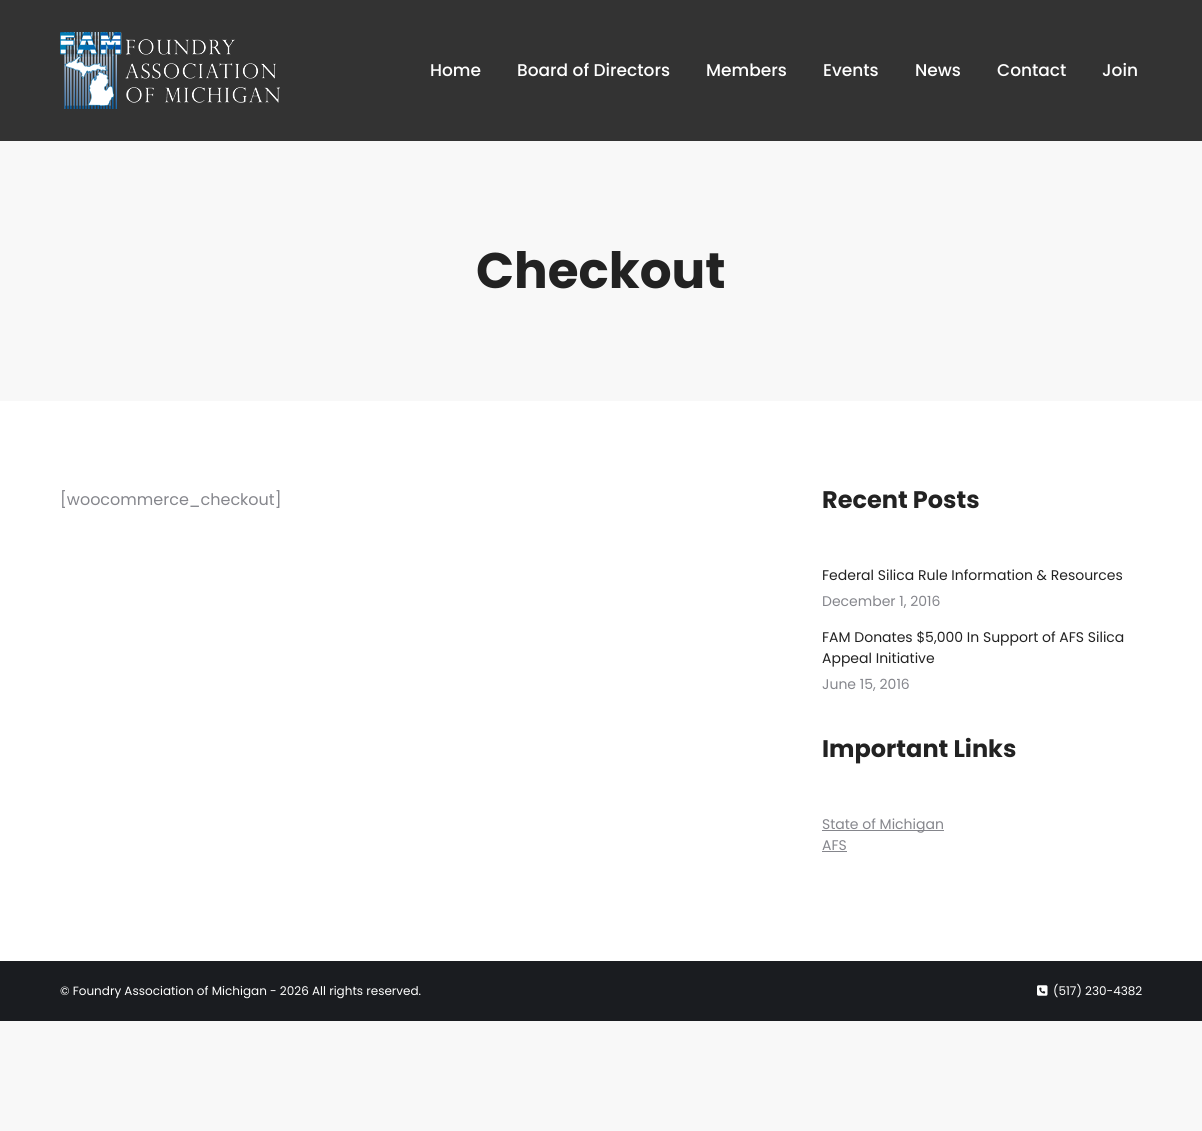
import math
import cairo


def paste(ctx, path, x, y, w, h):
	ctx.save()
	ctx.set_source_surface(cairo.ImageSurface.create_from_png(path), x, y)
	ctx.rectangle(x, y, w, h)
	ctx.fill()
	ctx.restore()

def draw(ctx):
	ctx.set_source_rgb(0.969, 0.969, 0.969)
	ctx.paint()
	ctx.set_source_rgb(1, 1, 1)
	ctx.rectangle(0, 401, 1202, 560)
	ctx.fill()
	ctx.set_source_rgb(0.2, 0.2, 0.2)
	ctx.rectangle(0, 0, 1202, 141)
	ctx.fill()
	paste(ctx, 'media/1.png', 60, 32, 220, 77)
	ctx.select_font_face('Poppins Medium')
	ctx.set_font_size(17)
	ctx.set_source_rgb(1, 1, 1)
	for x, y, s in [
		(430, 76, 'Home'),
		(517, 76, 'Board of Directors'),
		(706, 76, 'Members'),
		(823, 76, 'Events'),
		(915, 76, 'News'),
		(997, 76, 'Contact'),
		(1102, 76, 'Join'),
	]:
		ctx.move_to(x, y)
		ctx.show_text(s)
	ctx.select_font_face('Poppins', cairo.FONT_SLANT_NORMAL, cairo.FONT_WEIGHT_BOLD)
	ctx.set_font_size(50)
	ctx.set_source_rgb(0.133, 0.133, 0.133)
	ctx.move_to(476, 288)
	ctx.show_text('Checkout')
	ctx.select_font_face('Poppins')
	ctx.set_font_size(16)
	ctx.set_source_rgb(0.522, 0.525, 0.549)
	ctx.move_to(60, 505)
	ctx.show_text('[woocommerce_checkout]')
	ctx.select_font_face('Poppins', cairo.FONT_SLANT_NORMAL, cairo.FONT_WEIGHT_BOLD)
	ctx.set_font_size(24)
	ctx.set_source_rgb(0.133, 0.133, 0.133)
	ctx.move_to(822, 508)
	ctx.show_text('Recent Posts')
	ctx.select_font_face('Poppins')
	ctx.set_font_size(14)
	ctx.move_to(822, 580)
	ctx.show_text('Federal Silica Rule Information & Resources')
	ctx.set_source_rgb(0.522, 0.525, 0.549)
	ctx.move_to(822, 606)
	ctx.show_text('December 1, 2016')
	ctx.set_source_rgb(0.133, 0.133, 0.133)
	ctx.move_to(822, 642)
	ctx.show_text('FAM Donates $5,000 In Support of AFS Silica')
	ctx.move_to(822, 663)
	ctx.show_text('Appeal Initiative')
	ctx.set_source_rgb(0.522, 0.525, 0.549)
	ctx.move_to(822, 689)
	ctx.show_text('June 15, 2016')
	ctx.select_font_face('Poppins', cairo.FONT_SLANT_NORMAL, cairo.FONT_WEIGHT_BOLD)
	ctx.set_font_size(24)
	ctx.set_source_rgb(0.133, 0.133, 0.133)
	ctx.move_to(822, 757)
	ctx.show_text('Important Links')
	ctx.set_source_rgb(0.522, 0.525, 0.549)
	ctx.rectangle(822, 830, 122, 1)
	ctx.fill()
	ctx.select_font_face('Poppins')
	ctx.set_font_size(14)
	ctx.move_to(822, 829)
	ctx.show_text('State of Michigan')
	ctx.move_to(822, 850)
	ctx.show_text('AFS')
	ctx.rectangle(822, 851, 25, 1)
	ctx.fill()
	ctx.set_source_rgb(0.102, 0.11, 0.125)
	ctx.rectangle(0, 961, 1202, 60)
	ctx.fill()
	ctx.set_font_size(12)
	ctx.set_source_rgb(1, 1, 1)
	ctx.move_to(60, 995)
	ctx.show_text('© Foundry Association of Michigan - 2026 All rights reserved.')
	paste(ctx, 'media/2.png', 1037, 985, 11, 11)
	ctx.move_to(1053, 995)
	ctx.show_text('(517) 230-4382')


surface = cairo.ImageSurface(cairo.FORMAT_RGB24, 1202, 1131)
ctx = cairo.Context(surface)
options = cairo.FontOptions()
options.set_hint_metrics(cairo.HINT_METRICS_OFF)
options.set_hint_style(cairo.HINT_STYLE_NONE)
ctx.set_font_options(options)
ctx.set_miter_limit(4)
draw(ctx)
surface.write_to_png('image.png')
